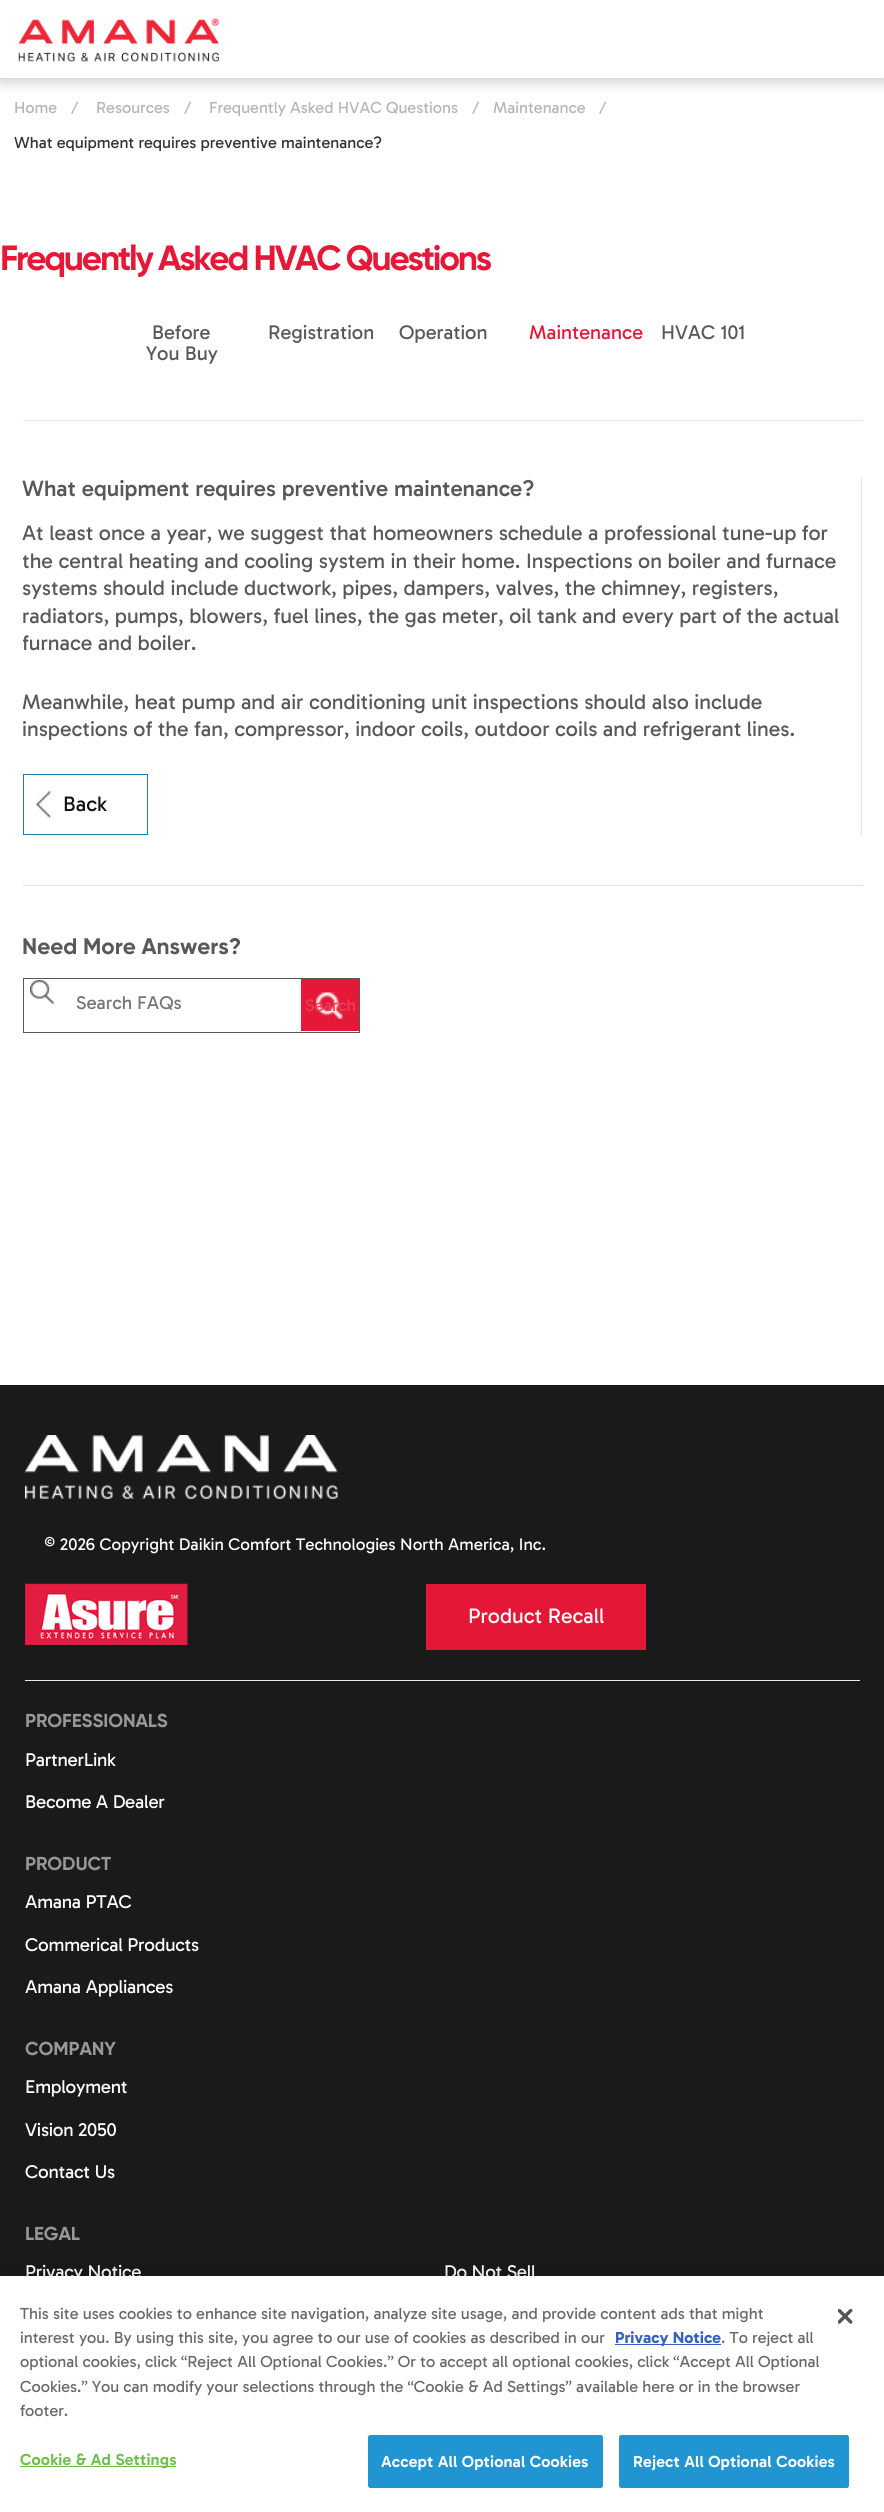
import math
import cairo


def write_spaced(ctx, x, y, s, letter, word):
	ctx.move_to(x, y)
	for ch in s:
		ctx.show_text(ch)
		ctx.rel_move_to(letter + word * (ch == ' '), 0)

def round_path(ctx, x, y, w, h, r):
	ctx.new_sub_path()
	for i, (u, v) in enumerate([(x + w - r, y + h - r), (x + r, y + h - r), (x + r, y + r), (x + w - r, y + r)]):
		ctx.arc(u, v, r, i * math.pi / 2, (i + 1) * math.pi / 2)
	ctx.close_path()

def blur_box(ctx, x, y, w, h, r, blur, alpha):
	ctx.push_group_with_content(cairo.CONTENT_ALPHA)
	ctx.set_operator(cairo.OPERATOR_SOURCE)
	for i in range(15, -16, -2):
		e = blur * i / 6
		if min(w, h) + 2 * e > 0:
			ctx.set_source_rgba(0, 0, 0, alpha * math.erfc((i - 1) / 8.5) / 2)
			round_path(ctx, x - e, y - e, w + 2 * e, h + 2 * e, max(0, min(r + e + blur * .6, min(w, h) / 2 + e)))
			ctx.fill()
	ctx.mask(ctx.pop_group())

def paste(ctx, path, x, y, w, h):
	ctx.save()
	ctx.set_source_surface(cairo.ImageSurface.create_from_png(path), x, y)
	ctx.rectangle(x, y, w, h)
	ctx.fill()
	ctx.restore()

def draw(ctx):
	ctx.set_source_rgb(1, 1, 1)
	ctx.paint()
	ctx.set_source_rgb(0, 0, 0)
	blur_box(ctx, 0, 3, 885, 77, 0, 8, 0.25)
	ctx.set_source_rgb(1, 1, 1)
	ctx.rectangle(0, 0, 884, 78)
	ctx.fill()
	paste(ctx, 'media/1.png', 18, 18, 201, 44)
	ctx.select_font_face('Gabarito')
	ctx.set_font_size(16.25)
	ctx.set_source_rgb(0.714, 0.714, 0.714)
	for x, y, s in [
		(14, 113, 'Home'),
		(71, 113, '/'),
		(96, 113, 'Resources'),
		(184, 113, '/'),
		(209, 113, 'Frequently Asked HVAC Questions'),
		(472, 113, '/'),
		(493, 113, 'Maintenance'),
		(599, 113, '/'),
	]:
		ctx.move_to(x, y)
		ctx.show_text(s)
	ctx.set_source_rgb(0.2, 0.2, 0.2)
	ctx.move_to(14, 148)
	ctx.show_text('What equipment requires preventive maintenance?')
	ctx.select_font_face('Gilroy', cairo.FONT_SLANT_NORMAL, cairo.FONT_WEIGHT_BOLD)
	ctx.set_font_size(35)
	ctx.set_source_rgb(0.898, 0.098, 0.216)
	write_spaced(ctx, 0, 270, 'Frequently Asked HVAC Questions', -2.25, 0)
	ctx.set_source_rgb(0.894, 0.894, 0.894)
	ctx.rectangle(23, 420, 840, 1)
	ctx.fill()
	ctx.select_font_face('Gabarito')
	ctx.set_font_size(20)
	ctx.set_source_rgb(0.345, 0.345, 0.353)
	for x, y, s in [
		(152, 339, 'Before'),
		(146, 360, 'You Buy'),
		(268, 339, 'Registration'),
		(399, 339, 'Operation'),
	]:
		ctx.move_to(x, y)
		ctx.show_text(s)
	ctx.set_source_rgb(0.898, 0.098, 0.216)
	ctx.move_to(529, 339)
	ctx.show_text('Maintenance')
	ctx.set_source_rgb(0.345, 0.345, 0.353)
	ctx.move_to(661, 339)
	ctx.show_text('HVAC 101')
	ctx.set_source_rgb(0.894, 0.894, 0.894)
	ctx.rectangle(861, 478, 1, 357)
	ctx.fill()
	ctx.select_font_face('Gabarito Medium')
	ctx.set_font_size(22.5)
	ctx.set_source_rgb(0.345, 0.345, 0.353)
	ctx.move_to(22, 496)
	ctx.show_text('What equipment requires preventive maintenance?')
	ctx.select_font_face('Gabarito')
	ctx.set_font_size(21.25)
	ctx.move_to(22, 540)
	ctx.show_text('At least once a year, we suggest that homeowners schedule a professional tune-up for')
	ctx.save()
	ctx.rectangle(23, 321, 840, 824)
	ctx.clip()
	ctx.move_to(22, 568)
	ctx.show_text('the central heating and cooling system in their home. Inspections on boiler and furnace')
	ctx.restore()
	ctx.move_to(22, 595)
	ctx.show_text('systems should include ductwork, pipes, dampers, valves, the chimney, registers,')
	ctx.move_to(22, 623)
	ctx.show_text('radiators, pumps, blowers, fuel lines, the gas meter, oil tank and every part of the actual')
	ctx.save()
	ctx.rectangle(23, 321, 840, 824)
	ctx.clip()
	ctx.move_to(22, 650)
	ctx.show_text('furnace and boiler.')
	ctx.restore()
	ctx.move_to(22, 709)
	ctx.show_text('Meanwhile, heat pump and air conditioning unit inspections should also include')
	ctx.move_to(22, 736)
	ctx.show_text('inspections of the fan, compressor, indoor coils, outdoor coils and refrigerant lines.')
	paste(ctx, 'media/2.png', 36, 791, 19, 27)
	ctx.rectangle(23.5, 774.5, 124, 60)
	ctx.set_source_rgb(0.137, 0.471, 0.702)
	ctx.set_line_width(1)
	ctx.stroke()
	ctx.set_source_rgb(0.071, 0.071, 0.071)
	ctx.move_to(63, 811)
	ctx.show_text('Back')
	ctx.set_source_rgb(0.894, 0.894, 0.894)
	ctx.rectangle(23, 885, 840, 1)
	ctx.fill()
	ctx.select_font_face('Gilroy', cairo.FONT_SLANT_NORMAL, cairo.FONT_WEIGHT_BOLD)
	ctx.set_font_size(22.5)
	ctx.set_source_rgb(0.345, 0.345, 0.353)
	ctx.move_to(22, 954)
	ctx.show_text('Need More Answers?')
	ctx.rectangle(23.5, 978.5, 336, 54)
	ctx.stroke()
	paste(ctx, 'media/3.png', 30, 980, 24, 24)
	ctx.select_font_face('Gabarito')
	ctx.set_font_size(18.75)
	ctx.set_source_rgb(0.459, 0.459, 0.459)
	ctx.move_to(76, 1009)
	ctx.show_text('Search FAQs')
	ctx.set_source_rgb(0.898, 0.098, 0.216)
	ctx.rectangle(301, 979, 58, 52)
	ctx.fill()
	paste(ctx, 'media/4.png', 316, 992, 27, 27)
	ctx.set_font_size(17)
	ctx.set_source_rgb(0.914, 0.247, 0.345)
	ctx.move_to(305, 1011)
	ctx.show_text('Search')
	ctx.set_source_rgb(0.106, 0.102, 0.102)
	ctx.rectangle(0, 1385, 884, 891)
	ctx.fill()
	ctx.set_source_rgb(0.906, 0.914, 0.929)
	ctx.rectangle(25, 1680, 835, 1)
	ctx.fill()
	paste(ctx, 'media/5.png', 25, 1435, 313, 64)
	ctx.set_source_rgb(1, 1, 1)
	ctx.move_to(44, 1550)
	ctx.show_text('© 2026 Copyright Daikin Comfort Technologies North America, Inc.')
	paste(ctx, 'media/6.png', 25, 1583, 163, 62)
	ctx.set_source_rgb(0.898, 0.09, 0.212)
	ctx.rectangle(426, 1584, 220, 66)
	ctx.fill()
	ctx.set_font_size(21.25)
	ctx.set_source_rgb(1, 1, 1)
	ctx.move_to(468, 1623)
	ctx.show_text('Product Recall')
	ctx.select_font_face('Gilroy', cairo.FONT_SLANT_NORMAL, cairo.FONT_WEIGHT_BOLD)
	ctx.set_font_size(18.75)
	ctx.set_source_rgb(0.592, 0.592, 0.592)
	write_spaced(ctx, 25, 1727, 'PROFESSIONALS', -0.1, 0)
	ctx.select_font_face('Gabarito')
	ctx.set_source_rgb(1, 1, 1)
	write_spaced(ctx, 25, 1766, 'PartnerLink', -0.25, 0)
	write_spaced(ctx, 25, 1808, 'Become A Dealer', -0.25, 0)
	ctx.select_font_face('Gilroy', cairo.FONT_SLANT_NORMAL, cairo.FONT_WEIGHT_BOLD)
	ctx.set_source_rgb(0.592, 0.592, 0.592)
	write_spaced(ctx, 25, 1870, 'PRODUCT', -0.1, 0)
	ctx.select_font_face('Gabarito')
	ctx.set_source_rgb(1, 1, 1)
	for x, y, s in [
		(25, 1908, 'Amana PTAC'),
		(25, 1951, 'Commerical Products'),
		(25, 1993, 'Amana Appliances'),
	]:
		write_spaced(ctx, x, y, s, -0.25, 0)
	ctx.select_font_face('Gilroy', cairo.FONT_SLANT_NORMAL, cairo.FONT_WEIGHT_BOLD)
	ctx.set_source_rgb(0.592, 0.592, 0.592)
	write_spaced(ctx, 25, 2055, 'COMPANY', -0.1, 0)
	ctx.select_font_face('Gabarito')
	ctx.set_source_rgb(1, 1, 1)
	for x, y, s in [
		(25, 2093, 'Employment'),
		(25, 2136, 'Vision 2050'),
		(25, 2178, 'Contact Us'),
	]:
		write_spaced(ctx, x, y, s, -0.25, 0)
	ctx.select_font_face('Gilroy', cairo.FONT_SLANT_NORMAL, cairo.FONT_WEIGHT_BOLD)
	ctx.set_source_rgb(0.592, 0.592, 0.592)
	write_spaced(ctx, 25, 2240, 'LEGAL', -0.1, 0)
	ctx.select_font_face('Gabarito')
	ctx.set_source_rgb(1, 1, 1)
	write_spaced(ctx, 25, 2278, 'Privacy Notice', -0.25, 0)
	write_spaced(ctx, 444, 2278, 'Do Not Sell', -0.25, 0)
	ctx.set_source_rgb(0, 0, 0)
	blur_box(ctx, 0, 2276, 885, 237, 0, 11, 0.2)
	ctx.set_source_rgb(1, 1, 1)
	ctx.rectangle(0, 2276, 884, 236)
	ctx.fill()
	ctx.set_font_size(16.25)
	ctx.set_source_rgb(0.412, 0.412, 0.412)
	ctx.move_to(20, 2319)
	ctx.show_text('This site uses cookies to enhance site navigation, analyze site usage, and provide content ads that might')
	ctx.move_to(20, 2343)
	ctx.show_text('interest you. By using this site, you agree to our use of cookies as described in our')
	ctx.set_source_rgb(0.22, 0.376, 0.745)
	ctx.rectangle(615, 2344, 106, 1)
	ctx.fill()
	ctx.select_font_face('Gabarito', cairo.FONT_SLANT_NORMAL, cairo.FONT_WEIGHT_BOLD)
	ctx.move_to(615, 2343)
	ctx.show_text('Privacy Notice')
	ctx.select_font_face('Gabarito')
	ctx.set_source_rgb(0.412, 0.412, 0.412)
	for x, y, s in [
		(721, 2343, '. To reject all'),
		(20, 2367, 'optional cookies, click “Reject All Optional Cookies.” Or to accept all optional cookies, click “Accept All Optional'),
		(20, 2392, 'Cookies.” You can modify your selections through the “Cookie & Ad Settings” available here or in the browser'),
		(20, 2416, 'footer.'),
	]:
		ctx.move_to(x, y)
		ctx.show_text(s)
	ctx.set_source_rgb(0.424, 0.753, 0.29)
	ctx.rectangle(20, 2466, 156, 1)
	ctx.fill()
	ctx.select_font_face('Gabarito SemiBold')
	write_spaced(ctx, 20, 2465, 'Cookie & Ad Settings', 0.15, 0)
	ctx.set_source_rgb(0.129, 0.584, 0.824)
	round_path(ctx, 368.5, 2435.5, 234, 52, 2)
	ctx.fill_preserve()
	ctx.stroke()
	ctx.set_source_rgb(1, 1, 1)
	write_spaced(ctx, 381, 2467, 'Accept All Optional Cookies', 0.15, 0)
	ctx.set_source_rgb(0.129, 0.584, 0.824)
	round_path(ctx, 619.5, 2435.5, 229, 52, 2)
	ctx.fill_preserve()
	ctx.stroke()
	ctx.set_source_rgb(1, 1, 1)
	write_spaced(ctx, 633, 2467, 'Reject All Optional Cookies', 0.15, 0)
	paste(ctx, 'media/7.png', 838, 2309, 15, 15)


surface = cairo.ImageSurface(cairo.FORMAT_RGB24, 884, 2512)
ctx = cairo.Context(surface)
options = cairo.FontOptions()
options.set_hint_metrics(cairo.HINT_METRICS_OFF)
options.set_hint_style(cairo.HINT_STYLE_NONE)
ctx.set_font_options(options)
ctx.set_miter_limit(4)
draw(ctx)
surface.write_to_png('image.png')
